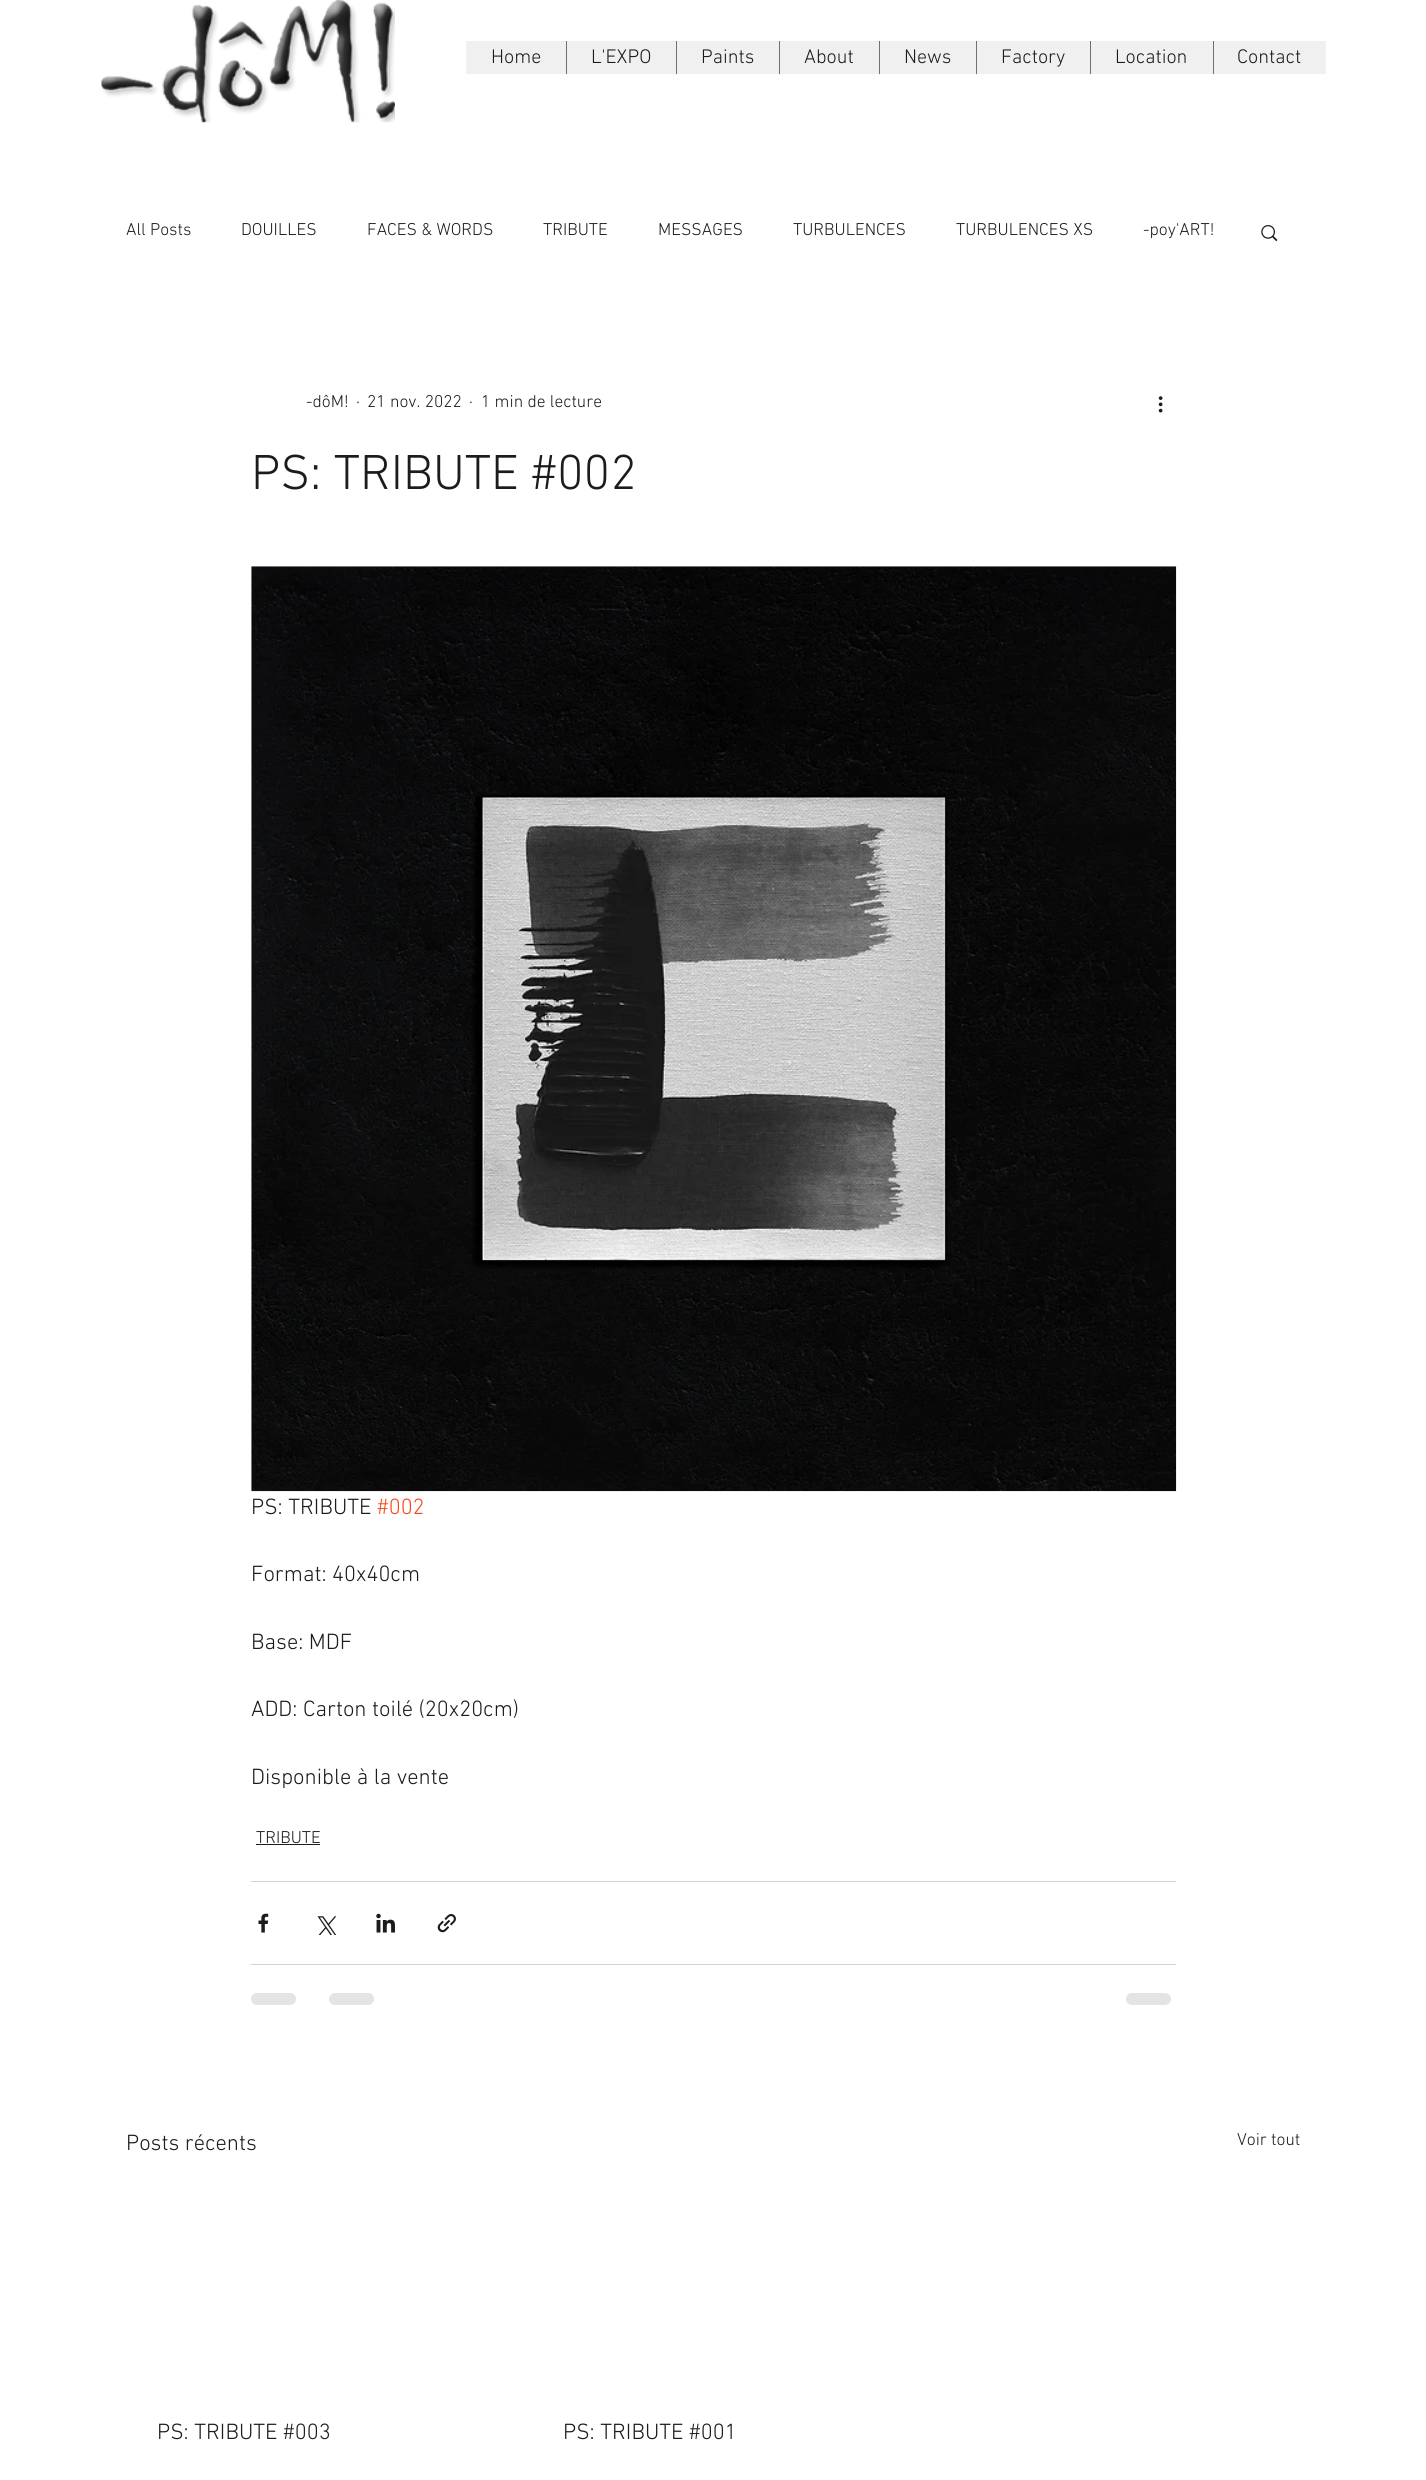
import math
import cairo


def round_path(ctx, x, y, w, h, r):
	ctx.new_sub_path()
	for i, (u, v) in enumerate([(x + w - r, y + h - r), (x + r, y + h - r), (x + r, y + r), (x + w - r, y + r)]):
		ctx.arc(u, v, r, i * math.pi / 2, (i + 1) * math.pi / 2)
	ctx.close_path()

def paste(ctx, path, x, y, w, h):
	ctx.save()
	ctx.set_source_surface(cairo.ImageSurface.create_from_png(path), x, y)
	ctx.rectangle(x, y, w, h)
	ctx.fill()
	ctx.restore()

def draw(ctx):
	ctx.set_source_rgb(1, 1, 1)
	ctx.paint()
	paste(ctx, 'media/1.png', 101, 0, 294, 123)
	ctx.set_source_rgb(0.945, 0.941, 0.941)
	ctx.rectangle(466, 41, 860, 33)
	ctx.fill()
	ctx.select_font_face('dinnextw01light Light')
	ctx.set_font_size(20)
	ctx.set_source_rgb(0.11, 0.11, 0.11)
	ctx.move_to(491, 63)
	ctx.show_text('Home')
	ctx.set_source_rgb(0.443, 0.439, 0.439)
	ctx.rectangle(566, 41, 1, 33)
	ctx.fill()
	ctx.set_source_rgb(0.11, 0.11, 0.11)
	ctx.move_to(591, 63)
	ctx.show_text('L\'EXPO')
	ctx.set_source_rgb(0.443, 0.439, 0.439)
	ctx.rectangle(676, 41, 1, 33)
	ctx.fill()
	ctx.set_source_rgb(0.11, 0.11, 0.11)
	ctx.move_to(701, 63)
	ctx.show_text('Paints')
	ctx.set_source_rgb(0.443, 0.439, 0.439)
	ctx.rectangle(779, 41, 1, 33)
	ctx.fill()
	ctx.set_source_rgb(0.11, 0.11, 0.11)
	ctx.move_to(804, 63)
	ctx.show_text('About')
	ctx.set_source_rgb(0.443, 0.439, 0.439)
	ctx.rectangle(879, 41, 1, 33)
	ctx.fill()
	ctx.set_source_rgb(0.11, 0.11, 0.11)
	ctx.move_to(904, 63)
	ctx.show_text('News')
	ctx.set_source_rgb(0.443, 0.439, 0.439)
	ctx.rectangle(976, 41, 1, 33)
	ctx.fill()
	ctx.set_source_rgb(0.11, 0.11, 0.11)
	ctx.move_to(1001, 63)
	ctx.show_text('Factory')
	ctx.set_source_rgb(0.443, 0.439, 0.439)
	ctx.rectangle(1090, 41, 1, 33)
	ctx.fill()
	ctx.set_source_rgb(0.11, 0.11, 0.11)
	ctx.move_to(1115, 63)
	ctx.show_text('Location')
	ctx.set_source_rgb(0.443, 0.439, 0.439)
	ctx.rectangle(1213, 41, 1, 33)
	ctx.fill()
	ctx.set_source_rgb(0.11, 0.11, 0.11)
	ctx.move_to(1237, 63)
	ctx.show_text('Contact')
	ctx.set_font_size(17.5)
	for x, y, s in [
		(126, 235, 'All Posts'),
		(241, 235, 'DOUILLES'),
		(367, 235, 'FACES & WORDS'),
		(543, 235, 'TRIBUTE'),
		(658, 235, 'MESSAGES'),
		(793, 235, 'TURBULENCES'),
		(956, 235, 'TURBULENCES XS'),
		(1143, 235, '-poy\'ART!'),
	]:
		ctx.move_to(x, y)
		ctx.show_text(s)
	paste(ctx, 'media/2.png', 1261, 225, 17, 17)
	for x, y, s in [
		(306, 407, '-dôM!'),
		(356, 407, '·'),
		(367, 407, '21 nov. 2022'),
		(469, 407, '·'),
		(481, 407, '1 min de lecture'),
	]:
		ctx.move_to(x, y)
		ctx.show_text(s)
	paste(ctx, 'media/3.png', 1158, 396, 5, 17)
	ctx.set_font_size(50)
	ctx.move_to(251, 489)
	ctx.show_text('PS: TRIBUTE #002')
	paste(ctx, 'media/4.png', 251, 566, 926, 926)
	ctx.set_font_size(22.5)
	ctx.move_to(251, 1514)
	ctx.show_text('PS: TRIBUTE')
	ctx.set_source_rgb(0.98, 0.275, 0.098)
	ctx.move_to(377, 1514)
	ctx.show_text('#002')
	ctx.set_source_rgb(0.11, 0.11, 0.11)
	for x, y, s in [
		(251, 1581, 'Format: 40x40cm'),
		(251, 1649, 'Base: MDF'),
		(251, 1716, 'ADD: Carton toilé (20x20cm)'),
		(251, 1784, 'Disponible à la vente'),
	]:
		ctx.move_to(x, y)
		ctx.show_text(s)
	ctx.set_font_size(17.5)
	ctx.move_to(256, 1843)
	ctx.show_text('TRIBUTE')
	ctx.rectangle(256, 1844, 64, 1)
	ctx.fill()
	ctx.set_source_rgb(0.824, 0.824, 0.824)
	ctx.rectangle(251, 1881, 925, 1)
	ctx.fill()
	paste(ctx, 'media/5.png', 258, 1913, 11, 20)
	paste(ctx, 'media/6.png', 317, 1916, 19, 19)
	paste(ctx, 'media/7.png', 376, 1913, 19, 20)
	paste(ctx, 'media/8.png', 437, 1914, 19, 19)
	ctx.rectangle(251, 1964, 925, 1)
	ctx.fill()
	ctx.set_source_rgb(0.894, 0.894, 0.894)
	round_path(ctx, 251, 1993, 45, 12, 6)
	ctx.fill()
	round_path(ctx, 329, 1993, 45, 12, 6)
	ctx.fill()
	round_path(ctx, 1126, 1993, 45, 12, 6)
	ctx.fill()
	ctx.set_font_size(22.5)
	ctx.set_source_rgb(0.11, 0.11, 0.11)
	ctx.move_to(126, 2150)
	ctx.show_text('Posts récents')
	ctx.set_font_size(17.5)
	ctx.move_to(1237, 2145)
	ctx.show_text('Voir tout')
	ctx.set_font_size(22.5)
	ctx.move_to(157, 2439)
	ctx.show_text('PS: TRIBUTE #003')
	ctx.move_to(563, 2439)
	ctx.show_text('PS: TRIBUTE #001')


surface = cairo.ImageSurface(cairo.FORMAT_RGB24, 1426, 2480)
ctx = cairo.Context(surface)
options = cairo.FontOptions()
options.set_hint_metrics(cairo.HINT_METRICS_OFF)
options.set_hint_style(cairo.HINT_STYLE_NONE)
ctx.set_font_options(options)
ctx.set_miter_limit(4)
draw(ctx)
surface.write_to_png('image.png')
